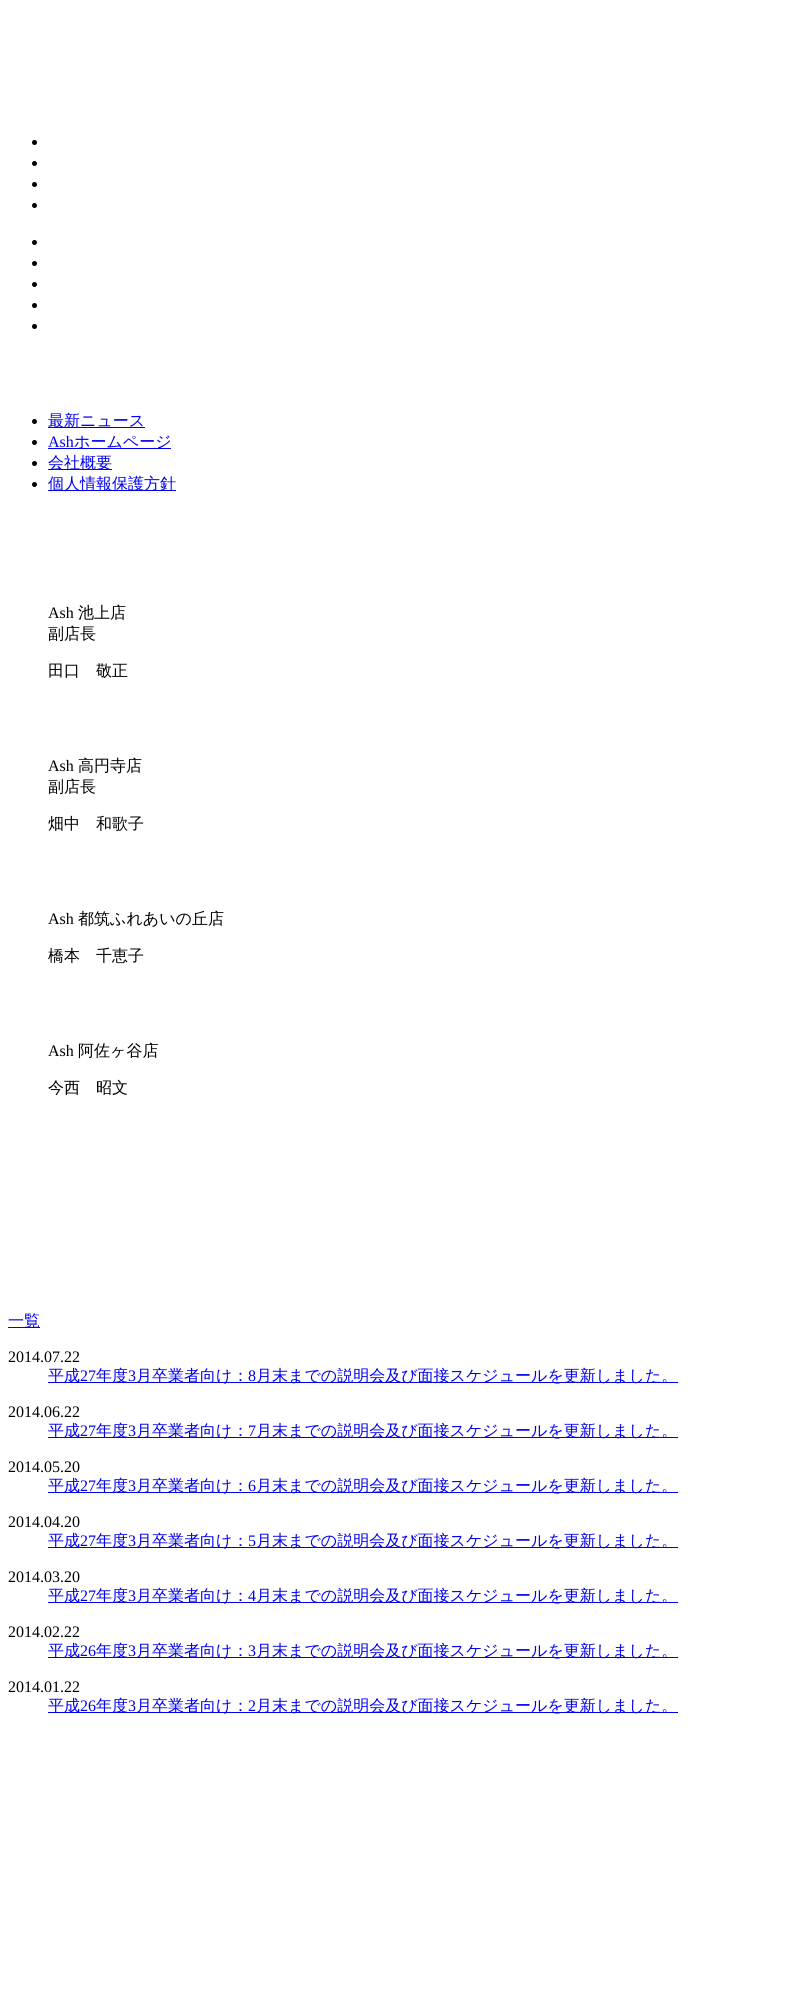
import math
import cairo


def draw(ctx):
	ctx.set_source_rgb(1, 1, 1)
	ctx.paint()
	ctx.set_source_rgb(0, 0, 0)
	ctx.arc(34.5, 142.5, 2.5, 0, 2 * math.pi)
	ctx.fill()
	ctx.arc(34.5, 163.5, 2.5, 0, 2 * math.pi)
	ctx.fill()
	ctx.arc(34.5, 184.5, 2.5, 0, 2 * math.pi)
	ctx.fill()
	ctx.arc(34.5, 205.5, 2.5, 0, 2 * math.pi)
	ctx.fill()
	ctx.arc(34.5, 242.5, 2.5, 0, 2 * math.pi)
	ctx.fill()
	ctx.arc(34.5, 263.5, 2.5, 0, 2 * math.pi)
	ctx.fill()
	ctx.arc(34.5, 284.5, 2.5, 0, 2 * math.pi)
	ctx.fill()
	ctx.arc(34.5, 305.5, 2.5, 0, 2 * math.pi)
	ctx.fill()
	ctx.arc(34.5, 326.5, 2.5, 0, 2 * math.pi)
	ctx.fill()
	ctx.arc(34.5, 421.5, 2.5, 0, 2 * math.pi)
	ctx.fill()
	ctx.set_source_rgb(0, 0, 0.933)
	ctx.rectangle(48, 427, 97, 1)
	ctx.fill()
	ctx.select_font_face('WenQuanYi Zen Hei Medium')
	ctx.set_font_size(16)
	ctx.move_to(48, 426)
	ctx.show_text('最新ニュース')
	ctx.set_source_rgb(0, 0, 0)
	ctx.new_path()
	ctx.arc(34.5, 442.5, 2.5, 0, 2 * math.pi)
	ctx.fill()
	ctx.select_font_face('Liberation Serif')
	ctx.set_source_rgb(0, 0, 0.933)
	ctx.move_to(48, 447)
	ctx.show_text('Ash')
	ctx.rectangle(48, 448, 123, 1)
	ctx.fill()
	ctx.select_font_face('WenQuanYi Zen Hei Medium')
	ctx.move_to(74, 447)
	ctx.show_text('ホームページ')
	ctx.set_source_rgb(0, 0, 0)
	ctx.new_path()
	ctx.arc(34.5, 463.5, 2.5, 0, 2 * math.pi)
	ctx.fill()
	ctx.set_source_rgb(0, 0, 0.933)
	ctx.rectangle(48, 469, 64, 1)
	ctx.fill()
	ctx.move_to(48, 468)
	ctx.show_text('会社概要')
	ctx.set_source_rgb(0, 0, 0)
	ctx.new_path()
	ctx.arc(34.5, 484.5, 2.5, 0, 2 * math.pi)
	ctx.fill()
	ctx.set_source_rgb(0, 0, 0.933)
	ctx.rectangle(48, 490, 128, 1)
	ctx.fill()
	ctx.move_to(48, 489)
	ctx.show_text('個人情報保護方針')
	ctx.select_font_face('Liberation Serif')
	ctx.set_source_rgb(0, 0, 0)
	ctx.move_to(48, 618)
	ctx.show_text('Ash')
	ctx.select_font_face('WenQuanYi Zen Hei Medium')
	for x, y, s in [
		(78, 618, '池上店'),
		(48, 639, '副店長'),
		(48, 676, '田口　敬正'),
	]:
		ctx.move_to(x, y)
		ctx.show_text(s)
	ctx.select_font_face('Liberation Serif')
	ctx.move_to(48, 771)
	ctx.show_text('Ash')
	ctx.select_font_face('WenQuanYi Zen Hei Medium')
	for x, y, s in [
		(78, 771, '高円寺店'),
		(48, 792, '副店長'),
		(48, 829, '畑中　和歌子'),
	]:
		ctx.move_to(x, y)
		ctx.show_text(s)
	ctx.select_font_face('Liberation Serif')
	ctx.move_to(48, 924)
	ctx.show_text('Ash')
	ctx.select_font_face('WenQuanYi Zen Hei Medium')
	ctx.move_to(78, 924)
	ctx.show_text('都筑ふれあいの丘店')
	ctx.move_to(48, 961)
	ctx.show_text('橋本　千恵子')
	ctx.select_font_face('Liberation Serif')
	ctx.move_to(48, 1056)
	ctx.show_text('Ash')
	ctx.select_font_face('WenQuanYi Zen Hei Medium')
	ctx.move_to(78, 1056)
	ctx.show_text('阿佐ヶ谷店')
	ctx.move_to(48, 1093)
	ctx.show_text('今西　昭文')
	ctx.set_source_rgb(0, 0, 0.933)
	ctx.rectangle(8, 1327, 32, 1)
	ctx.fill()
	ctx.move_to(8, 1326)
	ctx.show_text('一覧')
	ctx.select_font_face('Liberation Serif')
	ctx.set_source_rgb(0, 0, 0)
	ctx.move_to(8, 1362)
	ctx.show_text('2014.07.22')
	ctx.set_source_rgb(0, 0, 0.933)
	ctx.rectangle(48, 1382, 630, 1)
	ctx.fill()
	ctx.select_font_face('WenQuanYi Zen Hei Medium')
	ctx.move_to(48, 1381)
	ctx.show_text('平成')
	ctx.select_font_face('Liberation Serif')
	ctx.move_to(80, 1381)
	ctx.show_text('27')
	ctx.select_font_face('WenQuanYi Zen Hei Medium')
	ctx.move_to(96, 1381)
	ctx.show_text('年度')
	ctx.select_font_face('Liberation Serif')
	ctx.move_to(128, 1381)
	ctx.show_text('3')
	ctx.select_font_face('WenQuanYi Zen Hei Medium')
	ctx.move_to(136, 1381)
	ctx.show_text('月卒業者向け：')
	ctx.select_font_face('Liberation Serif')
	ctx.move_to(248, 1381)
	ctx.show_text('8')
	ctx.select_font_face('WenQuanYi Zen Hei Medium')
	ctx.move_to(256, 1381)
	ctx.show_text('月末までの説明会及び面接スケジュールを更新しました。')
	ctx.select_font_face('Liberation Serif')
	ctx.set_source_rgb(0, 0, 0)
	ctx.move_to(8, 1417)
	ctx.show_text('2014.06.22')
	ctx.set_source_rgb(0, 0, 0.933)
	ctx.rectangle(48, 1437, 630, 1)
	ctx.fill()
	ctx.select_font_face('WenQuanYi Zen Hei Medium')
	ctx.move_to(48, 1436)
	ctx.show_text('平成')
	ctx.select_font_face('Liberation Serif')
	ctx.move_to(80, 1436)
	ctx.show_text('27')
	ctx.select_font_face('WenQuanYi Zen Hei Medium')
	ctx.move_to(96, 1436)
	ctx.show_text('年度')
	ctx.select_font_face('Liberation Serif')
	ctx.move_to(128, 1436)
	ctx.show_text('3')
	ctx.select_font_face('WenQuanYi Zen Hei Medium')
	ctx.move_to(136, 1436)
	ctx.show_text('月卒業者向け：')
	ctx.select_font_face('Liberation Serif')
	ctx.move_to(248, 1436)
	ctx.show_text('7')
	ctx.select_font_face('WenQuanYi Zen Hei Medium')
	ctx.move_to(256, 1436)
	ctx.show_text('月末までの説明会及び面接スケジュールを更新しました。')
	ctx.select_font_face('Liberation Serif')
	ctx.set_source_rgb(0, 0, 0)
	ctx.move_to(8, 1472)
	ctx.show_text('2014.05.20')
	ctx.set_source_rgb(0, 0, 0.933)
	ctx.rectangle(48, 1492, 630, 1)
	ctx.fill()
	ctx.select_font_face('WenQuanYi Zen Hei Medium')
	ctx.move_to(48, 1491)
	ctx.show_text('平成')
	ctx.select_font_face('Liberation Serif')
	ctx.move_to(80, 1491)
	ctx.show_text('27')
	ctx.select_font_face('WenQuanYi Zen Hei Medium')
	ctx.move_to(96, 1491)
	ctx.show_text('年度')
	ctx.select_font_face('Liberation Serif')
	ctx.move_to(128, 1491)
	ctx.show_text('3')
	ctx.select_font_face('WenQuanYi Zen Hei Medium')
	ctx.move_to(136, 1491)
	ctx.show_text('月卒業者向け：')
	ctx.select_font_face('Liberation Serif')
	ctx.move_to(248, 1491)
	ctx.show_text('6')
	ctx.select_font_face('WenQuanYi Zen Hei Medium')
	ctx.move_to(256, 1491)
	ctx.show_text('月末までの説明会及び面接スケジュールを更新しました。')
	ctx.select_font_face('Liberation Serif')
	ctx.set_source_rgb(0, 0, 0)
	ctx.move_to(8, 1527)
	ctx.show_text('2014.04.20')
	ctx.set_source_rgb(0, 0, 0.933)
	ctx.rectangle(48, 1547, 630, 1)
	ctx.fill()
	ctx.select_font_face('WenQuanYi Zen Hei Medium')
	ctx.move_to(48, 1546)
	ctx.show_text('平成')
	ctx.select_font_face('Liberation Serif')
	ctx.move_to(80, 1546)
	ctx.show_text('27')
	ctx.select_font_face('WenQuanYi Zen Hei Medium')
	ctx.move_to(96, 1546)
	ctx.show_text('年度')
	ctx.select_font_face('Liberation Serif')
	ctx.move_to(128, 1546)
	ctx.show_text('3')
	ctx.select_font_face('WenQuanYi Zen Hei Medium')
	ctx.move_to(136, 1546)
	ctx.show_text('月卒業者向け：')
	ctx.select_font_face('Liberation Serif')
	ctx.move_to(248, 1546)
	ctx.show_text('5')
	ctx.select_font_face('WenQuanYi Zen Hei Medium')
	ctx.move_to(256, 1546)
	ctx.show_text('月末までの説明会及び面接スケジュールを更新しました。')
	ctx.select_font_face('Liberation Serif')
	ctx.set_source_rgb(0, 0, 0)
	ctx.move_to(8, 1582)
	ctx.show_text('2014.03.20')
	ctx.set_source_rgb(0, 0, 0.933)
	ctx.rectangle(48, 1602, 630, 1)
	ctx.fill()
	ctx.select_font_face('WenQuanYi Zen Hei Medium')
	ctx.move_to(48, 1601)
	ctx.show_text('平成')
	ctx.select_font_face('Liberation Serif')
	ctx.move_to(80, 1601)
	ctx.show_text('27')
	ctx.select_font_face('WenQuanYi Zen Hei Medium')
	ctx.move_to(96, 1601)
	ctx.show_text('年度')
	ctx.select_font_face('Liberation Serif')
	ctx.move_to(128, 1601)
	ctx.show_text('3')
	ctx.select_font_face('WenQuanYi Zen Hei Medium')
	ctx.move_to(136, 1601)
	ctx.show_text('月卒業者向け：')
	ctx.select_font_face('Liberation Serif')
	ctx.move_to(248, 1601)
	ctx.show_text('4')
	ctx.select_font_face('WenQuanYi Zen Hei Medium')
	ctx.move_to(256, 1601)
	ctx.show_text('月末までの説明会及び面接スケジュールを更新しました。')
	ctx.select_font_face('Liberation Serif')
	ctx.set_source_rgb(0, 0, 0)
	ctx.move_to(8, 1637)
	ctx.show_text('2014.02.22')
	ctx.set_source_rgb(0, 0, 0.933)
	ctx.rectangle(48, 1657, 630, 1)
	ctx.fill()
	ctx.select_font_face('WenQuanYi Zen Hei Medium')
	ctx.move_to(48, 1656)
	ctx.show_text('平成')
	ctx.select_font_face('Liberation Serif')
	ctx.move_to(80, 1656)
	ctx.show_text('26')
	ctx.select_font_face('WenQuanYi Zen Hei Medium')
	ctx.move_to(96, 1656)
	ctx.show_text('年度')
	ctx.select_font_face('Liberation Serif')
	ctx.move_to(128, 1656)
	ctx.show_text('3')
	ctx.select_font_face('WenQuanYi Zen Hei Medium')
	ctx.move_to(136, 1656)
	ctx.show_text('月卒業者向け：')
	ctx.select_font_face('Liberation Serif')
	ctx.move_to(248, 1656)
	ctx.show_text('3')
	ctx.select_font_face('WenQuanYi Zen Hei Medium')
	ctx.move_to(256, 1656)
	ctx.show_text('月末までの説明会及び面接スケジュールを更新しました。')
	ctx.select_font_face('Liberation Serif')
	ctx.set_source_rgb(0, 0, 0)
	ctx.move_to(8, 1692)
	ctx.show_text('2014.01.22')
	ctx.set_source_rgb(0, 0, 0.933)
	ctx.rectangle(48, 1712, 630, 1)
	ctx.fill()
	ctx.select_font_face('WenQuanYi Zen Hei Medium')
	ctx.move_to(48, 1711)
	ctx.show_text('平成')
	ctx.select_font_face('Liberation Serif')
	ctx.move_to(80, 1711)
	ctx.show_text('26')
	ctx.select_font_face('WenQuanYi Zen Hei Medium')
	ctx.move_to(96, 1711)
	ctx.show_text('年度')
	ctx.select_font_face('Liberation Serif')
	ctx.move_to(128, 1711)
	ctx.show_text('3')
	ctx.select_font_face('WenQuanYi Zen Hei Medium')
	ctx.move_to(136, 1711)
	ctx.show_text('月卒業者向け：')
	ctx.select_font_face('Liberation Serif')
	ctx.move_to(248, 1711)
	ctx.show_text('2')
	ctx.select_font_face('WenQuanYi Zen Hei Medium')
	ctx.move_to(256, 1711)
	ctx.show_text('月末までの説明会及び面接スケジュールを更新しました。')


surface = cairo.ImageSurface(cairo.FORMAT_RGB24, 811, 1994)
ctx = cairo.Context(surface)
options = cairo.FontOptions()
options.set_hint_metrics(cairo.HINT_METRICS_OFF)
options.set_hint_style(cairo.HINT_STYLE_NONE)
ctx.set_font_options(options)
ctx.set_miter_limit(4)
draw(ctx)
surface.write_to_png('image.png')
